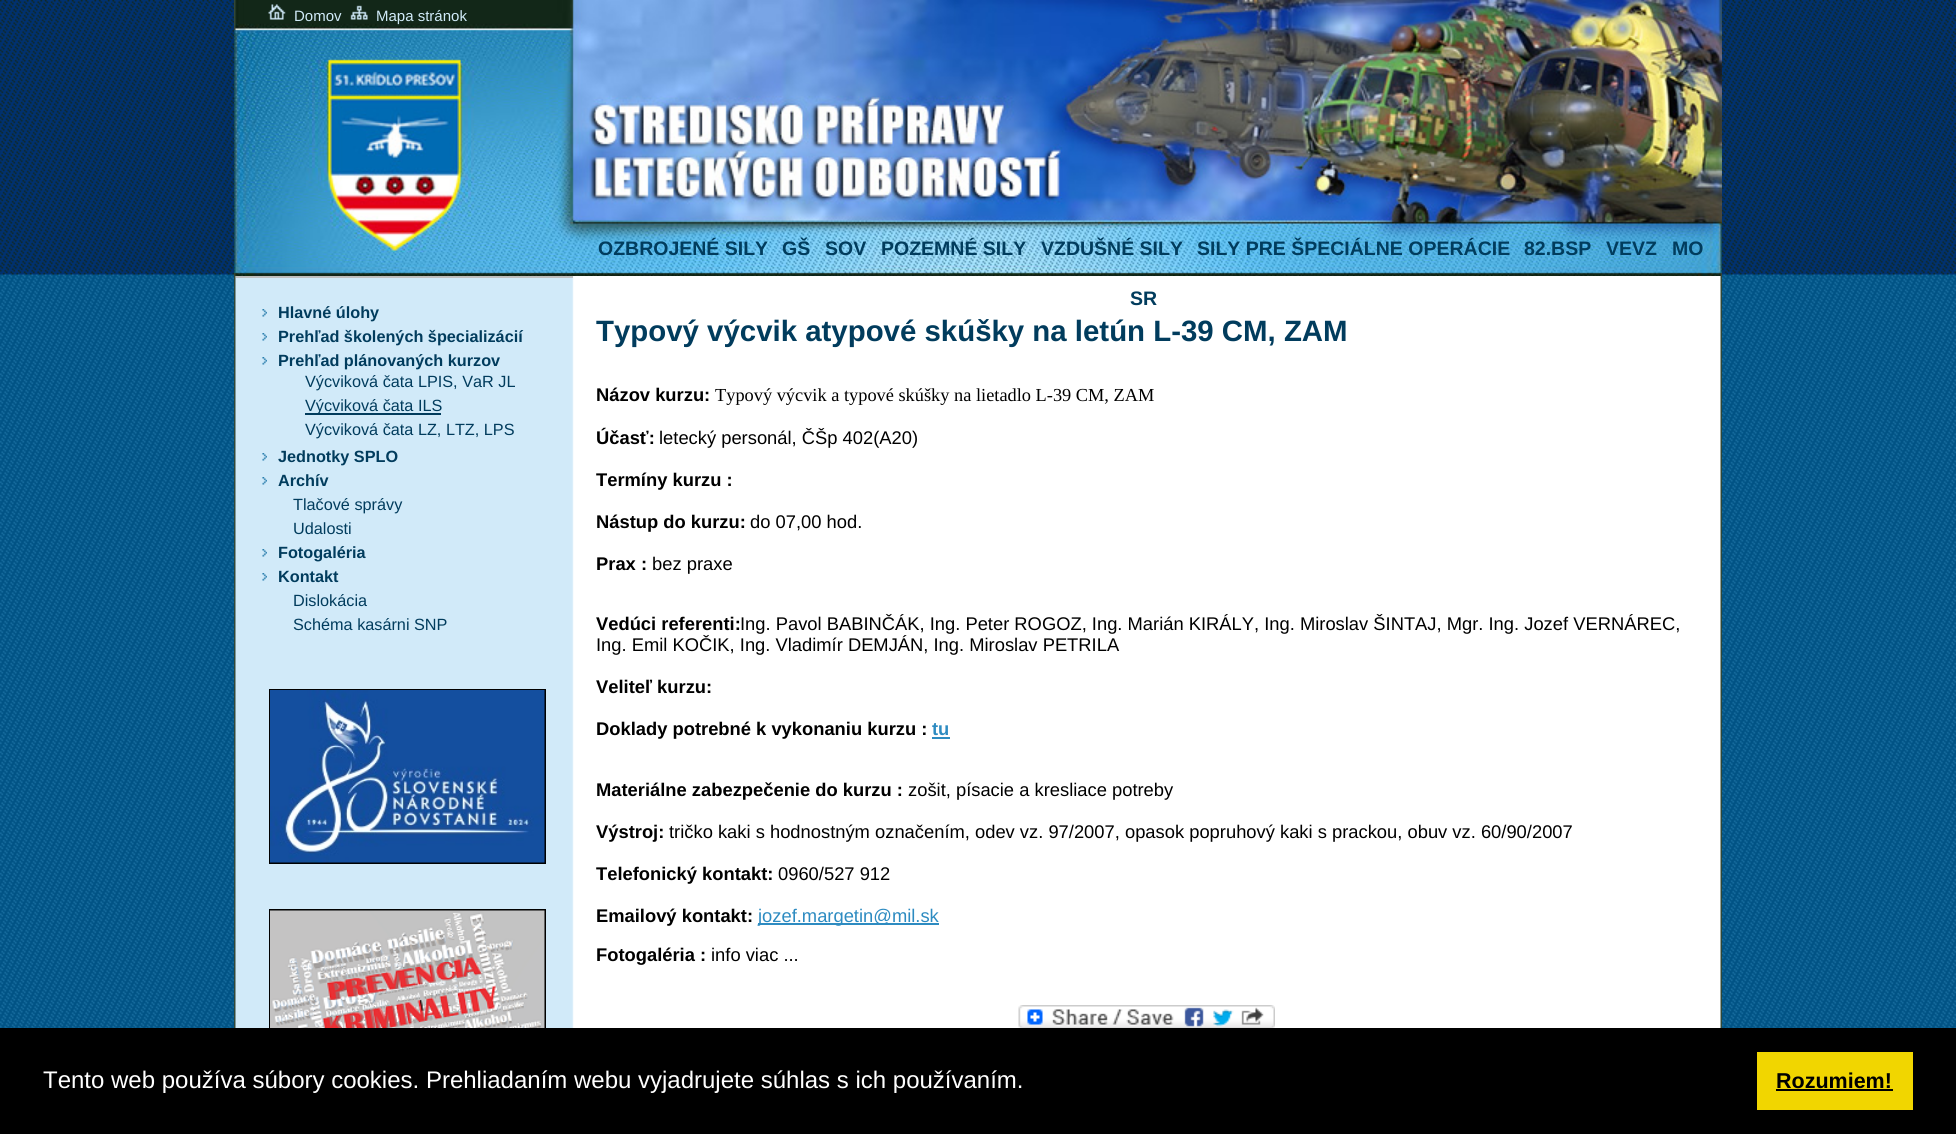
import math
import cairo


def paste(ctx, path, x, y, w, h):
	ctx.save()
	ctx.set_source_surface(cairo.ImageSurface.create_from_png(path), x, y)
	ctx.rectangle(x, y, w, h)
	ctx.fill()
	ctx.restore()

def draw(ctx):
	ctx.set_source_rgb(1, 1, 1)
	ctx.paint()
	paste(ctx, 'media/1.png', 0, 0, 1956, 1028)
	paste(ctx, 'media/2.png', 234, 276, 1488, 752)
	paste(ctx, 'media/3.png', 234, 0, 1488, 276)
	paste(ctx, 'media/4.png', 268, 4, 18, 16)
	ctx.select_font_face('Liberation Sans')
	ctx.set_font_size(15)
	ctx.set_source_rgb(0.82, 0.918, 0.976)
	ctx.move_to(294, 21)
	ctx.show_text('Domov')
	paste(ctx, 'media/5.png', 350, 5, 18, 15)
	ctx.move_to(376, 21)
	ctx.show_text('Mapa stránok')
	ctx.select_font_face('Liberation Sans', cairo.FONT_SLANT_NORMAL, cairo.FONT_WEIGHT_BOLD)
	ctx.set_font_size(19.5)
	ctx.set_source_rgb(0.004, 0.235, 0.365)
	for x, y, s in [
		(598, 255, 'OZBROJENÉ SILY'),
		(782, 255, 'GŠ'),
		(825, 255, 'SOV'),
		(881, 255, 'POZEMNÉ SILY'),
		(1041, 255, 'VZDUŠNÉ SILY'),
		(1197, 255, 'SILY PRE ŠPECIÁLNE OPERÁCIE'),
		(1524, 255, '82.BSP'),
		(1606, 255, 'VEVZ'),
		(1672, 255, 'MO'),
		(1130, 305, 'SR'),
	]:
		ctx.move_to(x, y)
		ctx.show_text(s)
	ctx.set_source_rgb(0.753, 0.753, 0.753)
	ctx.rectangle(236, 276, 337, 2)
	ctx.fill()
	paste(ctx, 'media/6.png', 262, 309, 5, 8)
	ctx.set_font_size(16.25)
	ctx.set_source_rgb(0.004, 0.235, 0.365)
	ctx.move_to(278, 318)
	ctx.show_text('Hlavné úlohy')
	paste(ctx, 'media/6.png', 262, 333, 5, 8)
	ctx.move_to(278, 342)
	ctx.show_text('Prehľad školených špecializácií')
	paste(ctx, 'media/6.png', 262, 357, 5, 8)
	ctx.move_to(278, 366)
	ctx.show_text('Prehľad plánovaných kurzov')
	ctx.select_font_face('Liberation Sans')
	ctx.move_to(305, 387)
	ctx.show_text('Výcviková čata LPIS, VaR JL')
	ctx.rectangle(305, 413, 136, 2)
	ctx.fill()
	ctx.move_to(305, 411)
	ctx.show_text('Výcviková čata ILS')
	ctx.move_to(305, 435)
	ctx.show_text('Výcviková čata LZ, LTZ, LPS')
	paste(ctx, 'media/6.png', 262, 453, 5, 8)
	ctx.select_font_face('Liberation Sans', cairo.FONT_SLANT_NORMAL, cairo.FONT_WEIGHT_BOLD)
	ctx.move_to(278, 462)
	ctx.show_text('Jednotky SPLO')
	paste(ctx, 'media/6.png', 262, 477, 5, 8)
	ctx.move_to(278, 486)
	ctx.show_text('Archív')
	ctx.select_font_face('Liberation Sans')
	ctx.move_to(293, 510)
	ctx.show_text('Tlačové správy')
	ctx.move_to(293, 534)
	ctx.show_text('Udalosti')
	paste(ctx, 'media/6.png', 262, 549, 5, 8)
	ctx.select_font_face('Liberation Sans', cairo.FONT_SLANT_NORMAL, cairo.FONT_WEIGHT_BOLD)
	ctx.move_to(278, 558)
	ctx.show_text('Fotogaléria')
	paste(ctx, 'media/6.png', 262, 573, 5, 8)
	ctx.move_to(278, 582)
	ctx.show_text('Kontakt')
	ctx.select_font_face('Liberation Sans')
	ctx.move_to(293, 606)
	ctx.show_text('Dislokácia')
	ctx.move_to(293, 630)
	ctx.show_text('Schéma kasárni SNP')
	ctx.rectangle(270, 690, 275, 173)
	ctx.set_source_rgb(0, 0, 0)
	ctx.stroke()
	paste(ctx, 'media/7.png', 270, 690, 275, 173)
	ctx.rectangle(270, 910, 275, 175)
	ctx.stroke()
	paste(ctx, 'media/8.png', 270, 910, 275, 118)
	ctx.select_font_face('Liberation Sans', cairo.FONT_SLANT_NORMAL, cairo.FONT_WEIGHT_BOLD)
	ctx.set_font_size(29.4)
	ctx.set_source_rgb(0.004, 0.235, 0.365)
	ctx.move_to(596, 341)
	ctx.show_text('Typový výcvik atypové skúšky na letún L-39 CM, ZAM')
	ctx.set_font_size(18.35)
	ctx.set_source_rgb(0, 0, 0)
	ctx.move_to(596, 401)
	ctx.show_text('Názov kurzu:')
	ctx.select_font_face('Liberation Serif')
	ctx.move_to(715, 401)
	ctx.show_text('Typový výcvik a typové skúšky na lietadlo L-39 CM, ZAM')
	ctx.select_font_face('Liberation Sans', cairo.FONT_SLANT_NORMAL, cairo.FONT_WEIGHT_BOLD)
	ctx.move_to(596, 444)
	ctx.show_text('Účasť:')
	ctx.select_font_face('Liberation Sans')
	ctx.move_to(659, 444)
	ctx.show_text('letecký personál, ČŠp 402(A20)')
	ctx.select_font_face('Liberation Sans', cairo.FONT_SLANT_NORMAL, cairo.FONT_WEIGHT_BOLD)
	ctx.move_to(596, 486)
	ctx.show_text('Termíny kurzu :')
	ctx.move_to(596, 528)
	ctx.show_text('Nástup do kurzu:')
	ctx.select_font_face('Liberation Sans')
	ctx.move_to(750, 528)
	ctx.show_text('do 07,00 hod.')
	ctx.select_font_face('Liberation Sans', cairo.FONT_SLANT_NORMAL, cairo.FONT_WEIGHT_BOLD)
	ctx.move_to(596, 570)
	ctx.show_text('Prax :')
	ctx.select_font_face('Liberation Sans')
	ctx.move_to(652, 570)
	ctx.show_text('bez praxe')
	ctx.select_font_face('Liberation Sans', cairo.FONT_SLANT_NORMAL, cairo.FONT_WEIGHT_BOLD)
	ctx.move_to(596, 630)
	ctx.show_text('Vedúci referenti:')
	ctx.select_font_face('Liberation Sans')
	ctx.move_to(740, 630)
	ctx.show_text('Ing. Pavol BABINČÁK, Ing. Peter ROGOZ, Ing. Marián KIRÁLY, Ing. Miroslav ŠINTAJ, Mgr. Ing. Jozef VERNÁREC,')
	ctx.move_to(596, 651)
	ctx.show_text('Ing. Emil KOČIK, Ing. Vladimír DEMJÁN, Ing. Miroslav PETRILA')
	ctx.select_font_face('Liberation Sans', cairo.FONT_SLANT_NORMAL, cairo.FONT_WEIGHT_BOLD)
	ctx.move_to(596, 693)
	ctx.show_text('Veliteľ kurzu:')
	ctx.move_to(596, 735)
	ctx.show_text('Doklady potrebné k vykonaniu kurzu :')
	ctx.set_source_rgb(0.176, 0.545, 0.757)
	ctx.move_to(932, 735)
	ctx.show_text('tu')
	ctx.rectangle(932, 737, 18, 2)
	ctx.fill()
	ctx.set_source_rgb(0, 0, 0)
	ctx.move_to(596, 796)
	ctx.show_text('Materiálne zabezpečenie do kurzu :')
	ctx.select_font_face('Liberation Sans')
	ctx.move_to(908, 796)
	ctx.show_text('zošit, písacie a kresliace potreby')
	ctx.select_font_face('Liberation Sans', cairo.FONT_SLANT_NORMAL, cairo.FONT_WEIGHT_BOLD)
	ctx.move_to(596, 838)
	ctx.show_text('Výstroj:')
	ctx.select_font_face('Liberation Sans')
	ctx.move_to(669, 838)
	ctx.show_text('tričko kaki s hodnostným označením, odev vz. 97/2007, opasok popruhový kaki s prackou, obuv vz. 60/90/2007')
	ctx.select_font_face('Liberation Sans', cairo.FONT_SLANT_NORMAL, cairo.FONT_WEIGHT_BOLD)
	ctx.move_to(596, 880)
	ctx.show_text('Telefonický kontakt:')
	ctx.select_font_face('Liberation Sans')
	ctx.move_to(778, 880)
	ctx.show_text('0960/527 912')
	ctx.select_font_face('Liberation Sans', cairo.FONT_SLANT_NORMAL, cairo.FONT_WEIGHT_BOLD)
	ctx.move_to(596, 922)
	ctx.show_text('Emailový kontakt:')
	ctx.set_source_rgb(0.176, 0.545, 0.757)
	ctx.rectangle(758, 923, 181, 2)
	ctx.fill()
	ctx.select_font_face('Liberation Sans')
	ctx.move_to(758, 922)
	ctx.show_text('jozef.margetin@mil.sk')
	ctx.select_font_face('Liberation Sans', cairo.FONT_SLANT_NORMAL, cairo.FONT_WEIGHT_BOLD)
	ctx.set_source_rgb(0, 0, 0)
	ctx.move_to(596, 961)
	ctx.show_text('Fotogaléria :')
	ctx.select_font_face('Liberation Sans')
	ctx.move_to(711, 961)
	ctx.show_text('info viac ...')
	paste(ctx, 'media/9.png', 1018, 1005, 257, 23)
	ctx.rectangle(0, 1028, 1956, 106)
	ctx.fill()
	ctx.set_font_size(24)
	ctx.set_source_rgb(1, 1, 1)
	ctx.move_to(43, 1088)
	ctx.show_text('Tento web používa súbory cookies. Prehliadaním webu vyjadrujete súhlas s ich používaním.')
	ctx.set_source_rgb(0.945, 0.839, 0)
	ctx.rectangle(1757, 1052, 156, 58)
	ctx.fill()
	ctx.select_font_face('Liberation Sans', cairo.FONT_SLANT_NORMAL, cairo.FONT_WEIGHT_BOLD)
	ctx.set_font_size(21.5)
	ctx.set_source_rgb(0, 0, 0)
	ctx.move_to(1776, 1088)
	ctx.show_text('Rozumiem!')
	ctx.rectangle(1776, 1089, 117, 2)
	ctx.fill()


surface = cairo.ImageSurface(cairo.FORMAT_RGB24, 1956, 1134)
ctx = cairo.Context(surface)
options = cairo.FontOptions()
options.set_hint_metrics(cairo.HINT_METRICS_OFF)
options.set_hint_style(cairo.HINT_STYLE_NONE)
ctx.set_font_options(options)
ctx.set_miter_limit(4)
draw(ctx)
surface.write_to_png('image.png')
